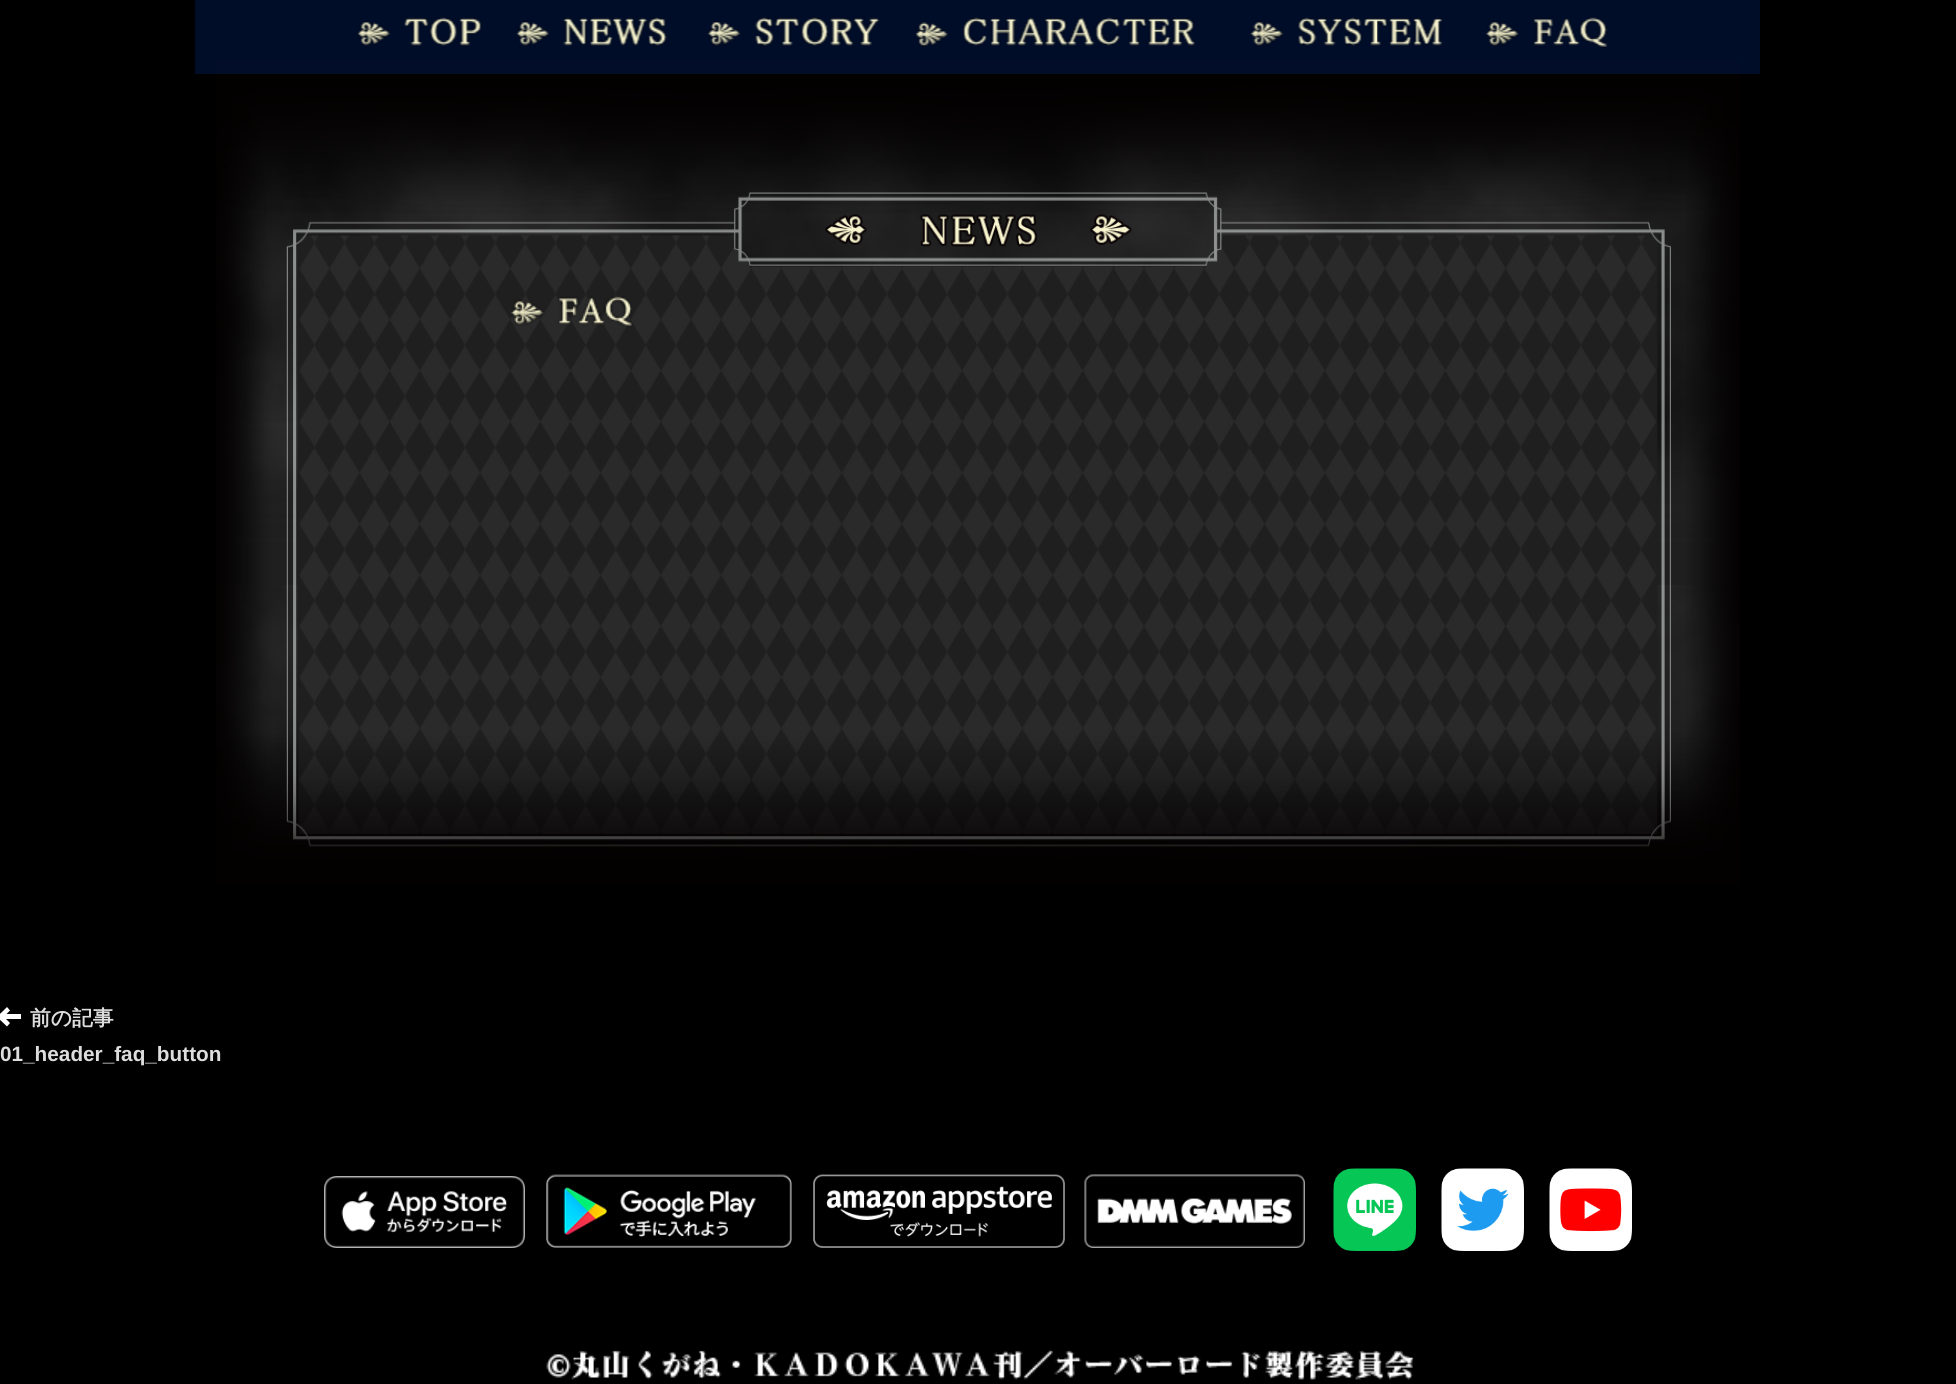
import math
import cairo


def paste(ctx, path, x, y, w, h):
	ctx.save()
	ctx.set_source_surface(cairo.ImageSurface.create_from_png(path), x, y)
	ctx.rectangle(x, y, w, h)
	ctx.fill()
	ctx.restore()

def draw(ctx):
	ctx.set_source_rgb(0, 0, 0)
	ctx.paint()
	paste(ctx, 'media/7.png', 298, 235, 1360, 599)
	paste(ctx, 'media/8.png', 216, 60, 1524, 825)
	ctx.set_source_rgba(0, 0.067, 0.204, 0.8)
	ctx.rectangle(195, 0, 1565, 74)
	ctx.fill()
	paste(ctx, 'media/1.png', 357, 17, 125, 30)
	paste(ctx, 'media/2.png', 516, 17, 151, 30)
	paste(ctx, 'media/3.png', 707, 16, 173, 31)
	paste(ctx, 'media/4.png', 915, 17, 280, 30)
	paste(ctx, 'media/5.png', 1250, 17, 193, 30)
	paste(ctx, 'media/6.png', 1485, 17, 123, 31)
	paste(ctx, 'media/9.png', 511, 296, 121, 31)
	ctx.set_source_rgb(1, 1, 1)
	ctx.rectangle(3, 1014, 18, 5)
	ctx.fill()
	ctx.new_path()
	ctx.move_to(0.5, 1013.5)
	ctx.line_to(10, 1023)
	ctx.line_to(7, 1026.5)
	ctx.line_to(-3, 1017)
	ctx.close_path()
	ctx.fill()
	ctx.new_path()
	ctx.move_to(7, 1007)
	ctx.line_to(10, 1010.5)
	ctx.line_to(0.5, 1020)
	ctx.line_to(-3, 1017)
	ctx.close_path()
	ctx.fill()
	ctx.select_font_face('WenQuanYi Zen Hei', cairo.FONT_SLANT_NORMAL, cairo.FONT_WEIGHT_BOLD)
	ctx.set_font_size(20.75)
	ctx.set_source_rgb(0.867, 0.867, 0.867)
	ctx.move_to(30, 1025)
	ctx.show_text('前の記事')
	ctx.select_font_face('Liberation Sans', cairo.FONT_SLANT_NORMAL, cairo.FONT_WEIGHT_BOLD)
	ctx.move_to(0, 1061)
	ctx.show_text('01_header_faq_button')
	paste(ctx, 'media/10.png', 324, 1176, 201, 72)
	paste(ctx, 'media/11.png', 546, 1174, 246, 74)
	paste(ctx, 'media/12.png', 813, 1174, 252, 74)
	paste(ctx, 'media/13.png', 1084, 1174, 221, 74)
	paste(ctx, 'media/14.png', 1333, 1168, 83, 83)
	paste(ctx, 'media/15.png', 1441, 1168, 83, 83)
	paste(ctx, 'media/16.png', 1549, 1168, 83, 83)
	paste(ctx, 'media/17.png', 546, 1349, 869, 31)


surface = cairo.ImageSurface(cairo.FORMAT_RGB24, 1956, 1384)
ctx = cairo.Context(surface)
options = cairo.FontOptions()
options.set_hint_metrics(cairo.HINT_METRICS_OFF)
options.set_hint_style(cairo.HINT_STYLE_NONE)
ctx.set_font_options(options)
ctx.set_miter_limit(4)
draw(ctx)
surface.write_to_png('image.png')
